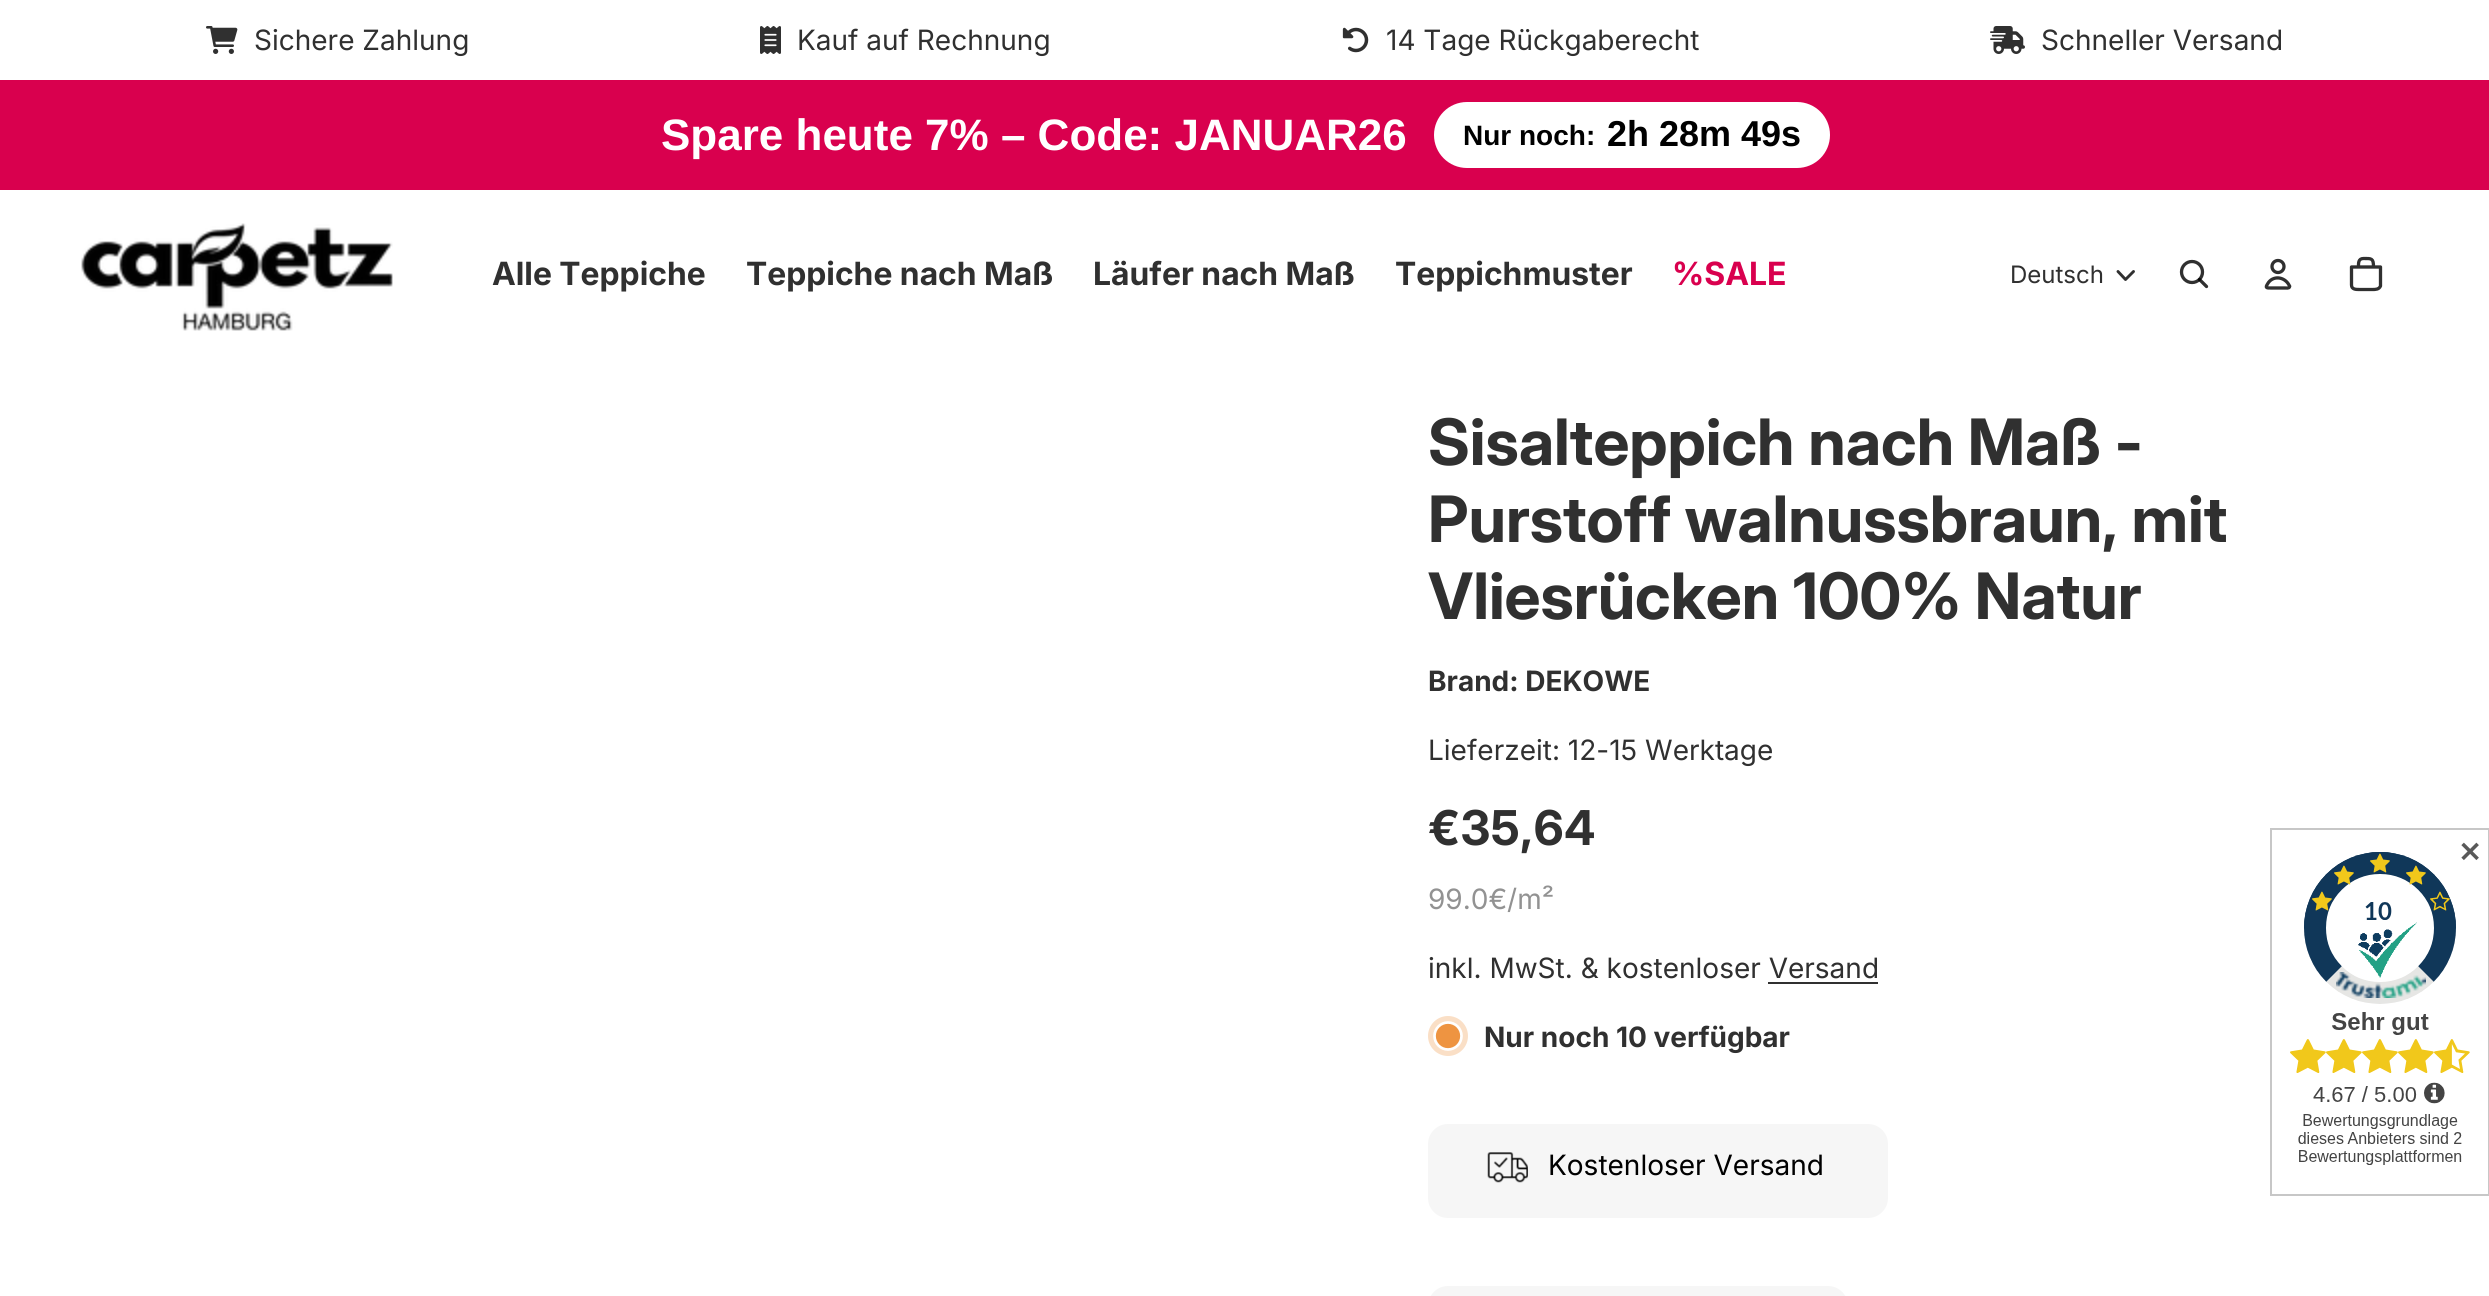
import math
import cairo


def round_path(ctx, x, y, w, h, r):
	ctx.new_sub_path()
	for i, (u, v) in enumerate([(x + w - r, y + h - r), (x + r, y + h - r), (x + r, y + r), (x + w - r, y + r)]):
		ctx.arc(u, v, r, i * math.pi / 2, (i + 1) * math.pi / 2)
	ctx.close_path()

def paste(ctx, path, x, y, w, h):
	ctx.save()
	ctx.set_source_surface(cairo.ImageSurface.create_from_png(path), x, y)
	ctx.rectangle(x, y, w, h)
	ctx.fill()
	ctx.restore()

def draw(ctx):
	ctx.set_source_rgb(1, 1, 1)
	ctx.paint()
	paste(ctx, 'media/1.png', 206, 26, 32, 28)
	ctx.select_font_face('Inter')
	ctx.set_font_size(28)
	ctx.set_source_rgb(0.188, 0.188, 0.188)
	ctx.move_to(254, 50)
	ctx.show_text('Sichere Zahlung')
	paste(ctx, 'media/2.png', 760, 26, 21, 28)
	ctx.move_to(797, 50)
	ctx.show_text('Kauf auf Rechnung')
	paste(ctx, 'media/3.png', 1342, 27, 27, 26)
	ctx.move_to(1386, 50)
	ctx.show_text('14 Tage Rückgaberecht')
	paste(ctx, 'media/4.png', 1990, 26, 35, 28)
	ctx.move_to(2041, 50)
	ctx.show_text('Schneller Versand')
	ctx.set_source_rgb(0.851, 0, 0.306)
	ctx.rectangle(0, 80, 2489, 110)
	ctx.fill()
	ctx.select_font_face('Liberation Sans', cairo.FONT_SLANT_NORMAL, cairo.FONT_WEIGHT_BOLD)
	ctx.set_font_size(44)
	ctx.set_source_rgb(1, 1, 1)
	ctx.move_to(661, 150)
	ctx.show_text('Spare heute 7% – Code: JANUAR26')
	round_path(ctx, 1434, 102, 396, 66, 33)
	ctx.fill()
	ctx.set_font_size(28)
	ctx.set_source_rgb(0, 0, 0)
	ctx.move_to(1463, 145)
	ctx.show_text('Nur noch:')
	ctx.set_font_size(36)
	ctx.move_to(1607, 146)
	ctx.show_text('2h 28m 49s')
	paste(ctx, 'media/5.png', 81, 223, 312, 108)
	ctx.select_font_face('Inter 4', cairo.FONT_SLANT_NORMAL, cairo.FONT_WEIGHT_BOLD)
	ctx.set_font_size(32)
	ctx.set_source_rgb(0.188, 0.188, 0.188)
	for x, y, s in [
		(492, 285, 'Alle Teppiche'),
		(746, 285, 'Teppiche nach Maß'),
		(1093, 285, 'Läufer nach Maß'),
		(1395, 285, 'Teppichmuster'),
	]:
		ctx.move_to(x, y)
		ctx.show_text(s)
	ctx.set_source_rgb(0.851, 0, 0.306)
	ctx.move_to(1672, 285)
	ctx.show_text('%SALE')
	ctx.select_font_face('Inter')
	ctx.set_font_size(24)
	ctx.set_source_rgb(0.188, 0.188, 0.188)
	ctx.move_to(2010, 283)
	ctx.show_text('Deutsch')
	ctx.new_path()
	ctx.move_to(2133.5, 271.5)
	ctx.line_to(2125.5, 279.5)
	ctx.line_to(2118, 271.5)
	ctx.set_line_width(2.9)
	ctx.set_line_cap(cairo.LINE_CAP_ROUND)
	ctx.set_line_join(cairo.LINE_JOIN_ROUND)
	ctx.stroke()
	ctx.arc(2192, 272, 10.5, 0, 2 * math.pi)
	ctx.set_line_width(3.3)
	ctx.set_line_cap(cairo.LINE_CAP_BUTT)
	ctx.set_line_join(cairo.LINE_JOIN_MITER)
	ctx.stroke()
	ctx.new_path()
	ctx.move_to(2199.5, 279.5)
	ctx.line_to(2206.5, 286.5)
	ctx.set_source_rgba(0, 0, 0, 0.81)
	ctx.set_line_cap(cairo.LINE_CAP_ROUND)
	ctx.set_line_join(cairo.LINE_JOIN_ROUND)
	ctx.stroke()
	ctx.arc(2278, 266.5, 6, 0, 2 * math.pi)
	ctx.set_source_rgb(0.188, 0.188, 0.188)
	ctx.set_line_cap(cairo.LINE_CAP_BUTT)
	ctx.set_line_join(cairo.LINE_JOIN_MITER)
	ctx.stroke()
	ctx.new_path()
	ctx.move_to(2267.5, 284)
	ctx.curve_to(2265, 288, 2266.5, 288, 2271, 288)
	ctx.line_to(2285, 288)
	ctx.curve_to(2285.5, 288, 2289, 288.5, 2289.5, 287)
	ctx.curve_to(2290, 286.5, 2289.5, 285.5, 2289, 285)
	ctx.curve_to(2284.5, 276.5, 2272.5, 275, 2267.5, 284)
	ctx.set_line_cap(cairo.LINE_CAP_ROUND)
	ctx.set_line_join(cairo.LINE_JOIN_ROUND)
	ctx.stroke()
	ctx.new_path()
	ctx.move_to(2351.5, 267)
	ctx.line_to(2380.5, 267)
	ctx.line_to(2380.5, 286)
	ctx.curve_to(2379, 289.5, 2375.5, 289.5, 2372.5, 289.5)
	ctx.line_to(2359.5, 289.5)
	ctx.curve_to(2356, 289.5, 2351.5, 289.5, 2351.5, 285)
	ctx.close_path()
	ctx.move_to(2363.5, 258.5)
	ctx.curve_to(2371.5, 258.5, 2373.5, 258, 2373.5, 267)
	ctx.line_to(2358.5, 267)
	ctx.curve_to(2358.5, 263.5, 2358, 258.5, 2363.5, 258.5)
	ctx.stroke()
	ctx.select_font_face('Inter', cairo.FONT_SLANT_NORMAL, cairo.FONT_WEIGHT_BOLD)
	ctx.set_font_size(64)
	for x, y, s in [
		(1428, 465, 'Sisalteppich nach Maß -'),
		(1428, 542, 'Purstoff walnussbraun, mit'),
		(1428, 619, 'Vliesrücken 100% Natur'),
	]:
		ctx.move_to(x, y)
		ctx.show_text(s)
	ctx.select_font_face('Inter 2', cairo.FONT_SLANT_NORMAL, cairo.FONT_WEIGHT_BOLD)
	ctx.set_font_size(28)
	ctx.move_to(1428, 691)
	ctx.show_text('Brand: DEKOWE')
	ctx.select_font_face('Inter')
	ctx.move_to(1428, 760)
	ctx.show_text('Lieferzeit: 12-15 Werktage')
	ctx.select_font_face('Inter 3', cairo.FONT_SLANT_NORMAL, cairo.FONT_WEIGHT_BOLD)
	ctx.set_font_size(48)
	ctx.move_to(1428, 845)
	ctx.show_text('€35,64')
	ctx.select_font_face('Inter')
	ctx.set_font_size(28)
	ctx.set_source_rgb(0.573, 0.573, 0.573)
	ctx.move_to(1428, 909)
	ctx.show_text('99.0€/m²')
	ctx.set_source_rgb(0.188, 0.188, 0.188)
	ctx.move_to(1428, 978)
	ctx.show_text('inkl. MwSt. & kostenloser Versand')
	ctx.rectangle(1768, 982, 110, 2)
	ctx.fill()
	ctx.set_source_rgb(0.98, 0.875, 0.776)
	ctx.arc(1448, 1036, 20, 0, 2 * math.pi)
	ctx.fill()
	ctx.set_source_rgb(0.933, 0.58, 0.255)
	ctx.arc(1448, 1036, 13.5, 0, 2 * math.pi)
	ctx.fill_preserve()
	ctx.set_source_rgb(1, 1, 1)
	ctx.set_line_width(2.7)
	ctx.set_line_cap(cairo.LINE_CAP_BUTT)
	ctx.set_line_join(cairo.LINE_JOIN_MITER)
	ctx.stroke()
	ctx.select_font_face('Inter 2', cairo.FONT_SLANT_NORMAL, cairo.FONT_WEIGHT_BOLD)
	ctx.set_source_rgb(0.188, 0.188, 0.188)
	ctx.move_to(1484, 1047)
	ctx.show_text('Nur noch 10 verfügbar')
	ctx.set_source_rgb(0.961, 0.961, 0.961)
	round_path(ctx, 1428, 1124, 460, 94, 20)
	ctx.fill()
	paste(ctx, 'media/6.png', 1487, 1152, 41, 31)
	ctx.select_font_face('Inter')
	ctx.set_source_rgb(0, 0, 0)
	ctx.move_to(1548, 1175)
	ctx.show_text('Kostenloser Versand')
	ctx.set_source_rgb(0.961, 0.961, 0.961)
	round_path(ctx, 1428, 1286, 420, 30, 20)
	ctx.fill()
	paste(ctx, 'media/7.png', 2270, 828, 219, 368)
	ctx.select_font_face('DejaVu Sans', cairo.FONT_SLANT_NORMAL, cairo.FONT_WEIGHT_BOLD)
	ctx.set_source_rgb(0.349, 0.349, 0.349)
	ctx.move_to(2458, 862)
	ctx.show_text('✕')


surface = cairo.ImageSurface(cairo.FORMAT_RGB24, 2489, 1296)
ctx = cairo.Context(surface)
options = cairo.FontOptions()
options.set_hint_metrics(cairo.HINT_METRICS_OFF)
options.set_hint_style(cairo.HINT_STYLE_NONE)
ctx.set_font_options(options)
ctx.set_miter_limit(4)
draw(ctx)
surface.write_to_png('image.png')
